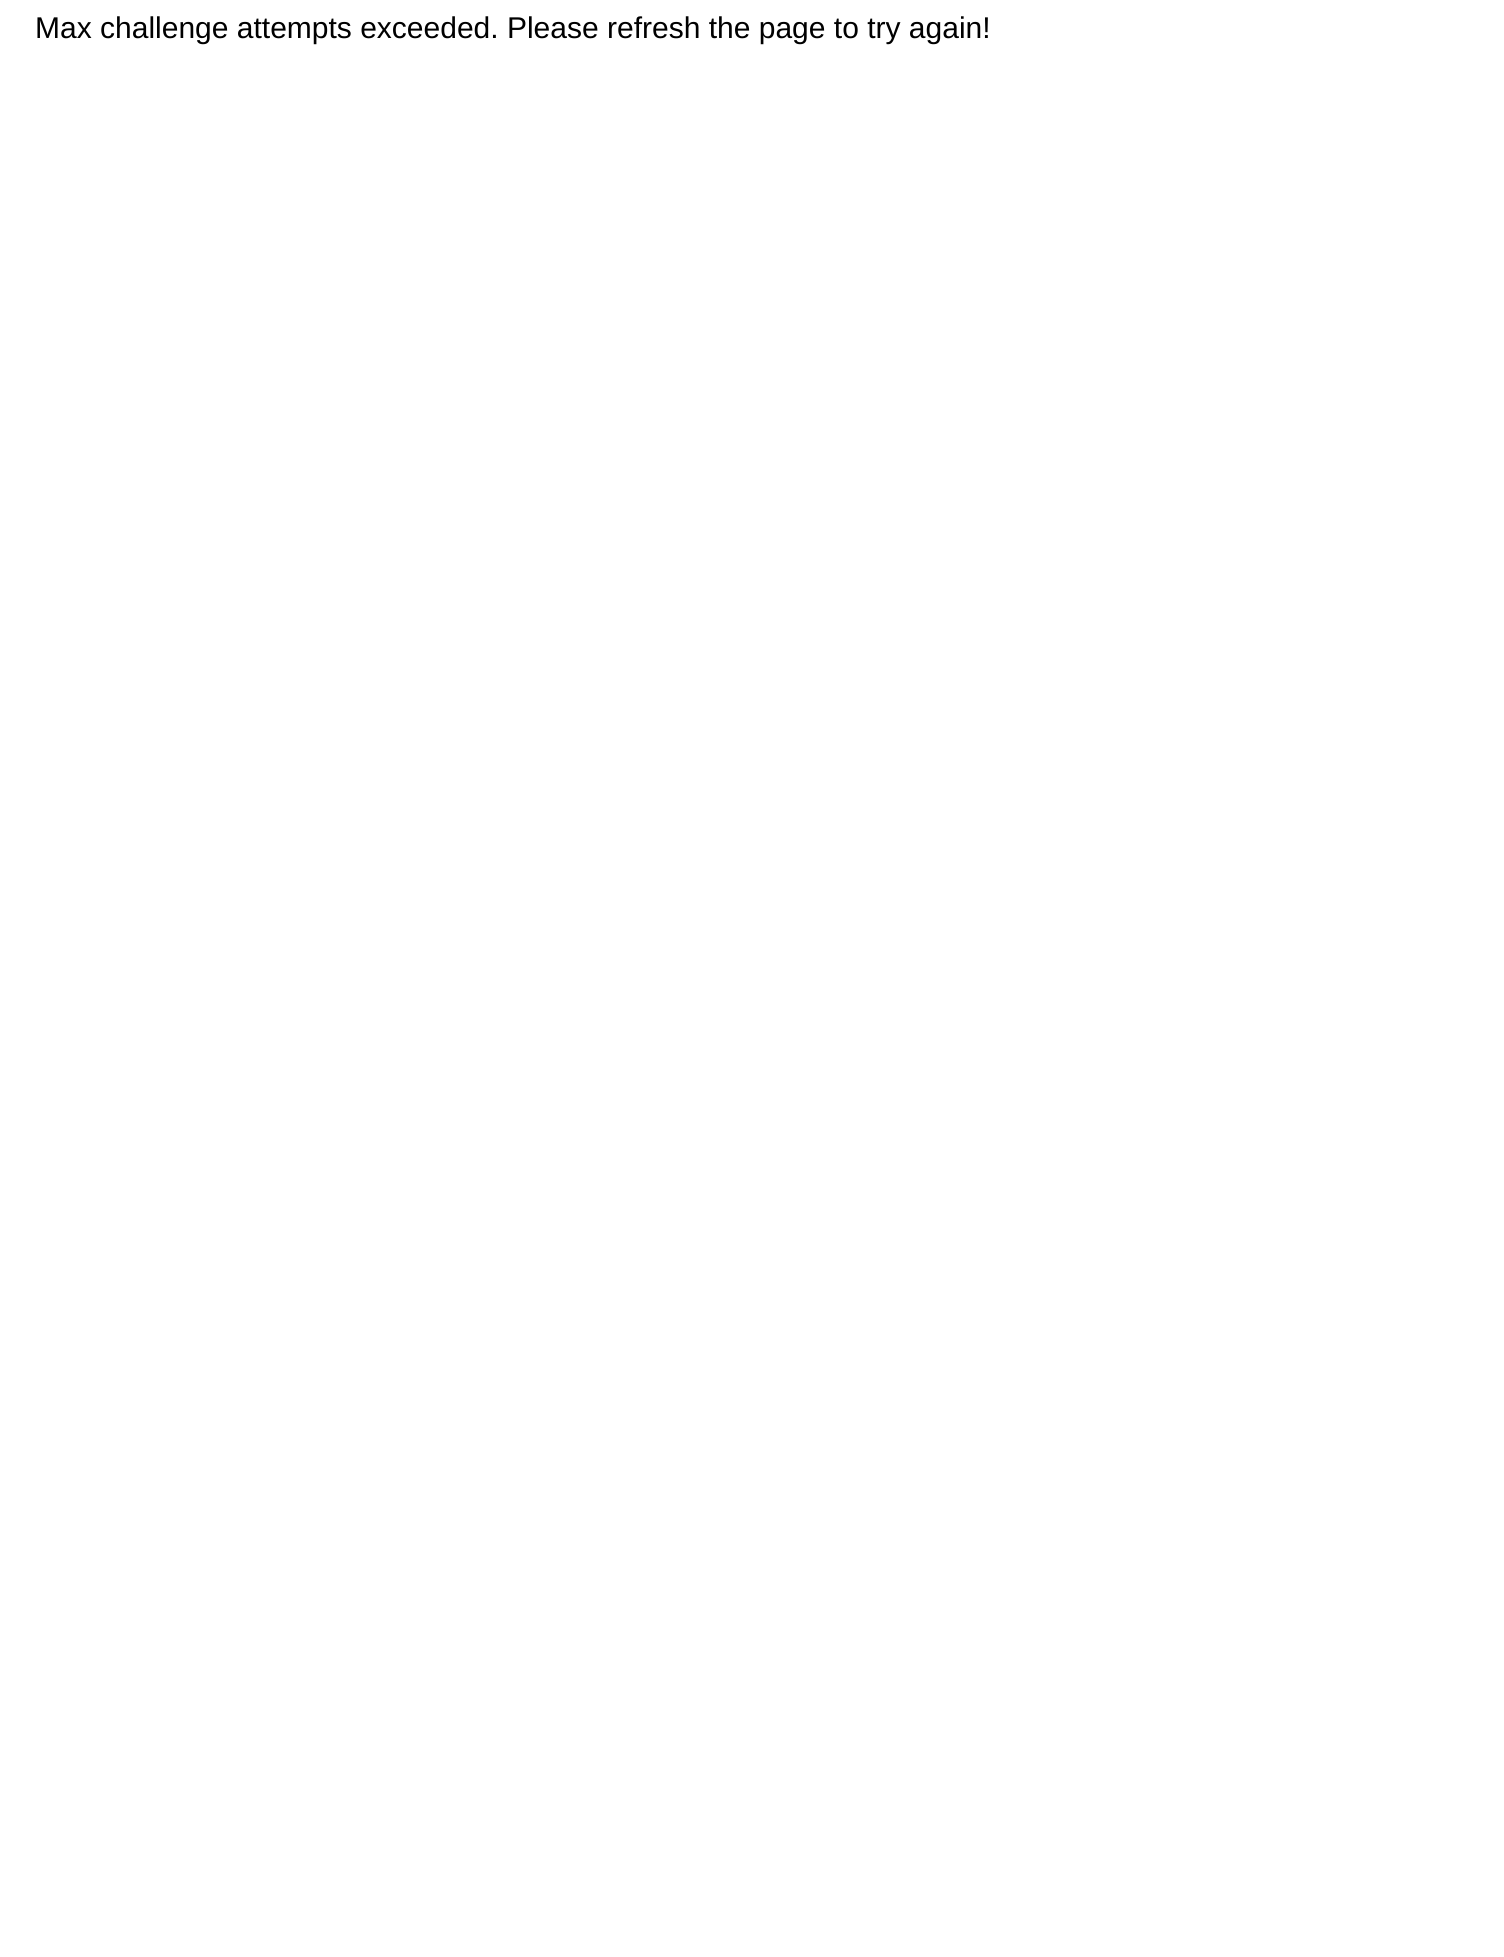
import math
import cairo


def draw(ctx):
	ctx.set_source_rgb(1, 1, 1)
	ctx.paint()
	ctx.select_font_face('Liberation Sans')
	ctx.set_font_size(30)
	ctx.set_source_rgb(0, 0, 0)
	ctx.move_to(35, 38)
	ctx.show_text('Max challenge attempts exceeded. Please refresh the page to try again!')


surface = cairo.ImageSurface(cairo.FORMAT_RGB24, 1504, 1957)
ctx = cairo.Context(surface)
options = cairo.FontOptions()
options.set_hint_metrics(cairo.HINT_METRICS_OFF)
options.set_hint_style(cairo.HINT_STYLE_NONE)
ctx.set_font_options(options)
ctx.set_miter_limit(4)
draw(ctx)
surface.write_to_png('image.png')
